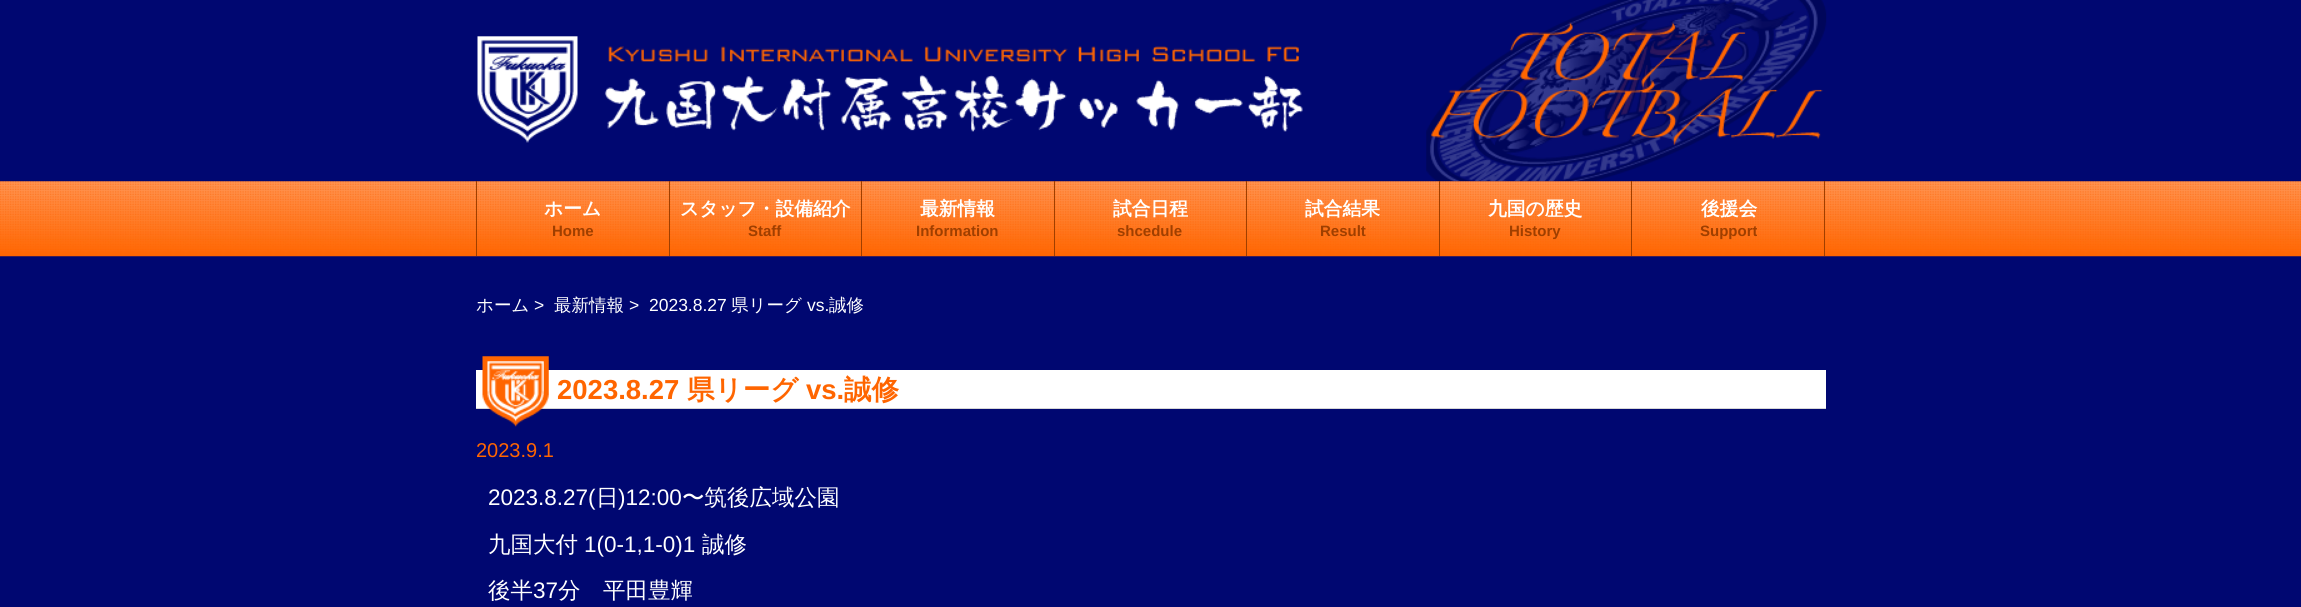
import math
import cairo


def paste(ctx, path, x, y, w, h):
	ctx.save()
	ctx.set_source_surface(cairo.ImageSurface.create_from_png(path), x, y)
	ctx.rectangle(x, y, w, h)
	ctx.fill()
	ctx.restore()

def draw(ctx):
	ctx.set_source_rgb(0, 0.031, 0.443)
	ctx.paint()
	paste(ctx, 'media/1.png', 1426, 0, 401, 182)
	paste(ctx, 'media/2.png', 477, 36, 826, 107)
	paste(ctx, 'media/3.png', 0, 181, 2301, 76)
	ctx.set_source_rgb(0.624, 0.247, 0)
	ctx.rectangle(669, 181, 1, 75)
	ctx.fill()
	ctx.rectangle(476, 181, 1, 75)
	ctx.fill()
	ctx.select_font_face('WenQuanYi Zen Hei', cairo.FONT_SLANT_NORMAL, cairo.FONT_WEIGHT_BOLD)
	ctx.set_font_size(18.75)
	ctx.set_source_rgb(1, 1, 1)
	ctx.move_to(544, 215)
	ctx.show_text('ホーム')
	ctx.select_font_face('Liberation Sans', cairo.FONT_SLANT_NORMAL, cairo.FONT_WEIGHT_BOLD)
	ctx.set_font_size(15)
	ctx.set_source_rgb(0.624, 0.247, 0)
	ctx.move_to(552, 236)
	ctx.show_text('Home')
	ctx.rectangle(861, 181, 1, 75)
	ctx.fill()
	ctx.select_font_face('WenQuanYi Zen Hei', cairo.FONT_SLANT_NORMAL, cairo.FONT_WEIGHT_BOLD)
	ctx.set_font_size(18.75)
	ctx.set_source_rgb(1, 1, 1)
	ctx.move_to(680, 215)
	ctx.show_text('スタッフ・設備紹介')
	ctx.select_font_face('Liberation Sans', cairo.FONT_SLANT_NORMAL, cairo.FONT_WEIGHT_BOLD)
	ctx.set_font_size(15)
	ctx.set_source_rgb(0.624, 0.247, 0)
	ctx.move_to(748, 236)
	ctx.show_text('Staff')
	ctx.rectangle(1054, 181, 1, 75)
	ctx.fill()
	ctx.select_font_face('WenQuanYi Zen Hei', cairo.FONT_SLANT_NORMAL, cairo.FONT_WEIGHT_BOLD)
	ctx.set_font_size(18.75)
	ctx.set_source_rgb(1, 1, 1)
	ctx.move_to(920, 215)
	ctx.show_text('最新情報')
	ctx.select_font_face('Liberation Sans', cairo.FONT_SLANT_NORMAL, cairo.FONT_WEIGHT_BOLD)
	ctx.set_font_size(15)
	ctx.set_source_rgb(0.624, 0.247, 0)
	ctx.move_to(916, 236)
	ctx.show_text('Information')
	ctx.rectangle(1246, 181, 1, 75)
	ctx.fill()
	ctx.select_font_face('WenQuanYi Zen Hei', cairo.FONT_SLANT_NORMAL, cairo.FONT_WEIGHT_BOLD)
	ctx.set_font_size(18.75)
	ctx.set_source_rgb(1, 1, 1)
	ctx.move_to(1113, 215)
	ctx.show_text('試合日程')
	ctx.select_font_face('Liberation Sans', cairo.FONT_SLANT_NORMAL, cairo.FONT_WEIGHT_BOLD)
	ctx.set_font_size(15)
	ctx.set_source_rgb(0.624, 0.247, 0)
	ctx.move_to(1117, 236)
	ctx.show_text('shcedule')
	ctx.rectangle(1439, 181, 1, 75)
	ctx.fill()
	ctx.select_font_face('WenQuanYi Zen Hei', cairo.FONT_SLANT_NORMAL, cairo.FONT_WEIGHT_BOLD)
	ctx.set_font_size(18.75)
	ctx.set_source_rgb(1, 1, 1)
	ctx.move_to(1305, 215)
	ctx.show_text('試合結果')
	ctx.select_font_face('Liberation Sans', cairo.FONT_SLANT_NORMAL, cairo.FONT_WEIGHT_BOLD)
	ctx.set_font_size(15)
	ctx.set_source_rgb(0.624, 0.247, 0)
	ctx.move_to(1320, 236)
	ctx.show_text('Result')
	ctx.rectangle(1631, 181, 1, 75)
	ctx.fill()
	ctx.select_font_face('WenQuanYi Zen Hei', cairo.FONT_SLANT_NORMAL, cairo.FONT_WEIGHT_BOLD)
	ctx.set_font_size(18.75)
	ctx.set_source_rgb(1, 1, 1)
	ctx.move_to(1488, 215)
	ctx.show_text('九国の歴史')
	ctx.select_font_face('Liberation Sans', cairo.FONT_SLANT_NORMAL, cairo.FONT_WEIGHT_BOLD)
	ctx.set_font_size(15)
	ctx.set_source_rgb(0.624, 0.247, 0)
	ctx.move_to(1509, 236)
	ctx.show_text('History')
	ctx.rectangle(1824, 181, 1, 75)
	ctx.fill()
	ctx.select_font_face('WenQuanYi Zen Hei', cairo.FONT_SLANT_NORMAL, cairo.FONT_WEIGHT_BOLD)
	ctx.set_font_size(18.75)
	ctx.set_source_rgb(1, 1, 1)
	ctx.move_to(1701, 215)
	ctx.show_text('後援会')
	ctx.select_font_face('Liberation Sans', cairo.FONT_SLANT_NORMAL, cairo.FONT_WEIGHT_BOLD)
	ctx.set_font_size(15)
	ctx.set_source_rgb(0.624, 0.247, 0)
	ctx.move_to(1700, 236)
	ctx.show_text('Support')
	ctx.select_font_face('WenQuanYi Zen Hei Medium')
	ctx.set_font_size(17.5)
	ctx.set_source_rgb(1, 1, 1)
	ctx.move_to(476, 311)
	ctx.show_text('ホーム')
	ctx.select_font_face('Liberation Sans')
	ctx.move_to(534, 311)
	ctx.show_text('>')
	ctx.select_font_face('WenQuanYi Zen Hei Medium')
	ctx.move_to(554, 311)
	ctx.show_text('最新情報')
	ctx.select_font_face('Liberation Sans')
	ctx.move_to(629, 311)
	ctx.show_text('>  2023.8.27')
	ctx.select_font_face('WenQuanYi Zen Hei Medium')
	ctx.move_to(731, 311)
	ctx.show_text('県リーグ')
	ctx.select_font_face('Liberation Sans')
	ctx.move_to(807, 311)
	ctx.show_text('vs.')
	ctx.select_font_face('WenQuanYi Zen Hei Medium')
	ctx.move_to(829, 311)
	ctx.show_text('誠修')
	ctx.rectangle(476, 370, 1350, 38)
	ctx.fill()
	ctx.set_source_rgb(0.839, 0.839, 0.839)
	ctx.rectangle(476, 408, 1350, 1)
	ctx.fill()
	paste(ctx, 'media/4.png', 482, 356, 67, 71)
	ctx.select_font_face('Liberation Sans', cairo.FONT_SLANT_NORMAL, cairo.FONT_WEIGHT_BOLD)
	ctx.set_font_size(27.5)
	ctx.set_source_rgb(1, 0.396, 0)
	ctx.move_to(557, 399)
	ctx.show_text('2023.8.27')
	ctx.select_font_face('WenQuanYi Zen Hei', cairo.FONT_SLANT_NORMAL, cairo.FONT_WEIGHT_BOLD)
	ctx.move_to(687, 399)
	ctx.show_text('県リーグ')
	ctx.select_font_face('Liberation Sans', cairo.FONT_SLANT_NORMAL, cairo.FONT_WEIGHT_BOLD)
	ctx.move_to(806, 399)
	ctx.show_text('vs.')
	ctx.select_font_face('WenQuanYi Zen Hei', cairo.FONT_SLANT_NORMAL, cairo.FONT_WEIGHT_BOLD)
	ctx.move_to(844, 399)
	ctx.show_text('誠修')
	ctx.select_font_face('Liberation Sans')
	ctx.set_font_size(20)
	ctx.move_to(476, 457)
	ctx.show_text('2023.9.1')
	ctx.set_font_size(22.5)
	ctx.set_source_rgb(1, 1, 1)
	ctx.move_to(488, 505)
	ctx.show_text('2023.8.27(')
	ctx.select_font_face('WenQuanYi Zen Hei Medium')
	ctx.move_to(596, 505)
	ctx.show_text('日')
	ctx.select_font_face('Liberation Sans')
	ctx.move_to(618, 505)
	ctx.show_text(')12:00')
	ctx.select_font_face('WenQuanYi Zen Hei Medium')
	ctx.move_to(682, 505)
	ctx.show_text('〜筑後広域公園')
	ctx.move_to(488, 552)
	ctx.show_text('九国大付')
	ctx.select_font_face('Liberation Sans')
	ctx.move_to(584, 552)
	ctx.show_text('1(0-1,1-0)1')
	ctx.select_font_face('WenQuanYi Zen Hei Medium')
	ctx.move_to(702, 552)
	ctx.show_text('誠修')
	ctx.move_to(488, 598)
	ctx.show_text('後半')
	ctx.select_font_face('Liberation Sans')
	ctx.move_to(533, 598)
	ctx.show_text('37')
	ctx.select_font_face('WenQuanYi Zen Hei Medium')
	ctx.move_to(558, 598)
	ctx.show_text('分　平田豊輝')


surface = cairo.ImageSurface(cairo.FORMAT_RGB24, 2301, 607)
ctx = cairo.Context(surface)
options = cairo.FontOptions()
options.set_hint_metrics(cairo.HINT_METRICS_OFF)
options.set_hint_style(cairo.HINT_STYLE_NONE)
ctx.set_font_options(options)
ctx.set_miter_limit(4)
draw(ctx)
surface.write_to_png('image.png')
